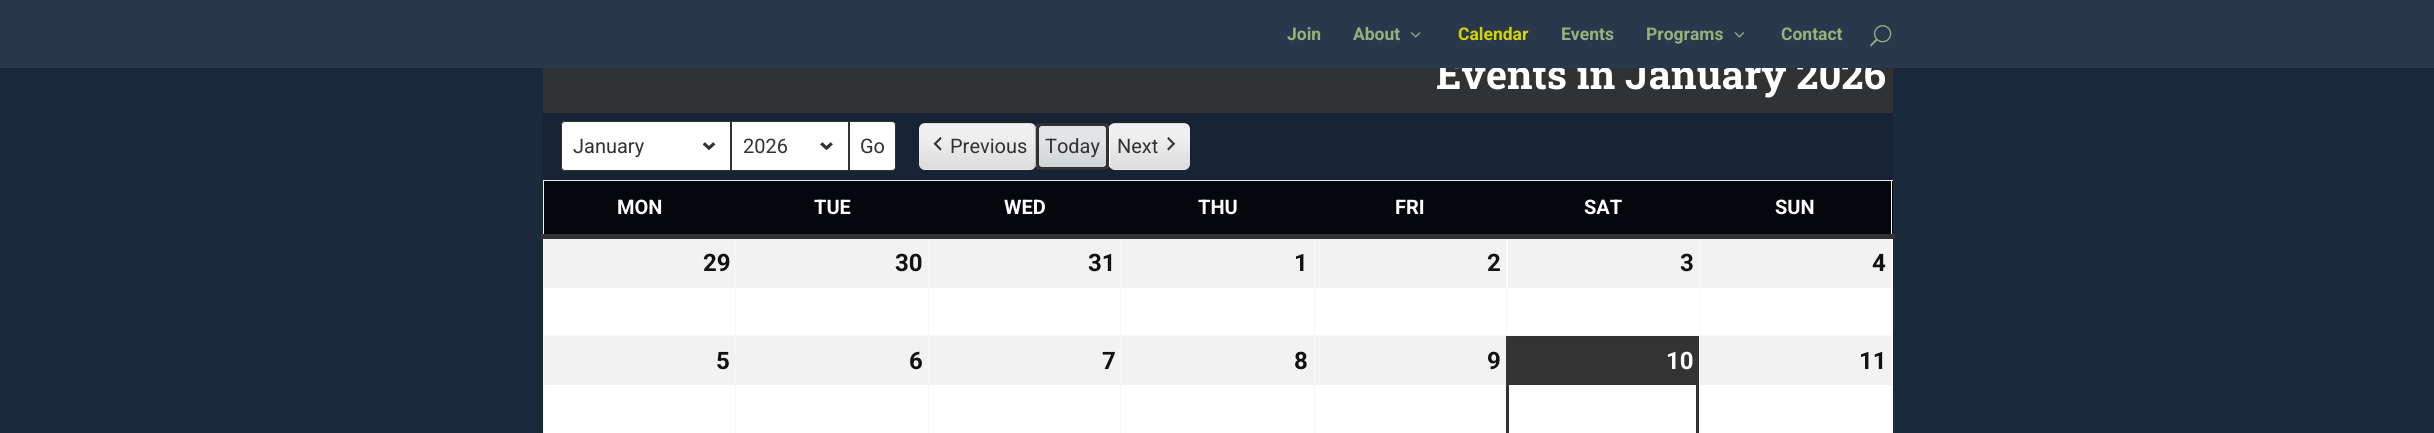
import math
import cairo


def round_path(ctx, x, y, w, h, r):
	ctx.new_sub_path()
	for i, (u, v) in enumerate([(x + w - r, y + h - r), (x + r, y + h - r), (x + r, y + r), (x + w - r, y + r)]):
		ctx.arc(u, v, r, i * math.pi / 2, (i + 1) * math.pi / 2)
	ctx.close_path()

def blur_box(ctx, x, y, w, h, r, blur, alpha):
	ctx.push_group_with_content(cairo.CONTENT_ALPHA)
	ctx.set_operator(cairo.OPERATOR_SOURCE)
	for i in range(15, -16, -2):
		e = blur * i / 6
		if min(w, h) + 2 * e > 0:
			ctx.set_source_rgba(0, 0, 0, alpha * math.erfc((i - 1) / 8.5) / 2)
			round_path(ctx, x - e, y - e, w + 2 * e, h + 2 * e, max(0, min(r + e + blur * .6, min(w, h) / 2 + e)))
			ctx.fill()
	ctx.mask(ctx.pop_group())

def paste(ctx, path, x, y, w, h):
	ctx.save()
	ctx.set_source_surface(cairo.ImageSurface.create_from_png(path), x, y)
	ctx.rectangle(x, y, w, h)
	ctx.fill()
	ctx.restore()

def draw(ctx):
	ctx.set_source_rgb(0.106, 0.161, 0.239)
	ctx.paint()
	ctx.set_source_rgb(0.192, 0.196, 0.2)
	ctx.rectangle(543, 68, 1350, 45)
	ctx.fill()
	ctx.set_source_rgb(0, 0, 0)
	blur_box(ctx, 0, 0, 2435, 68, 0, 4.5, 0.1)
	ctx.select_font_face('Roboto Slab', cairo.FONT_SLANT_NORMAL, cairo.FONT_WEIGHT_BOLD)
	ctx.set_font_size(40)
	ctx.set_source_rgb(1, 1, 1)
	ctx.move_to(1436, 89)
	ctx.show_text('Events in January 2026')
	ctx.set_source_rgb(0.165, 0.22, 0.306)
	ctx.rectangle(0, 0, 2434, 68)
	ctx.fill()
	ctx.select_font_face('Roboto', cairo.FONT_SLANT_NORMAL, cairo.FONT_WEIGHT_BOLD)
	ctx.set_font_size(17.5)
	ctx.set_source_rgb(0.584, 0.702, 0.475)
	ctx.move_to(1287, 40)
	ctx.show_text('Join')
	ctx.move_to(1353, 40)
	ctx.show_text('About')
	paste(ctx, 'media/1.png', 1411, 32, 10, 6)
	ctx.set_source_rgb(0.824, 0.839, 0)
	ctx.move_to(1458, 40)
	ctx.show_text('Calendar')
	ctx.set_source_rgb(0.584, 0.702, 0.475)
	ctx.move_to(1561, 40)
	ctx.show_text('Events')
	ctx.move_to(1646, 40)
	ctx.show_text('Programs')
	paste(ctx, 'media/2.png', 1734, 32, 10, 6)
	ctx.move_to(1781, 40)
	ctx.show_text('Contact')
	paste(ctx, 'media/3.png', 1870, 25, 22, 22)
	ctx.set_source_rgb(0.09, 0.137, 0.204)
	ctx.rectangle(543, 113, 1350, 67)
	ctx.fill()
	ctx.set_source_rgb(1, 1, 1)
	ctx.new_path()
	ctx.move_to(565, 121)
	ctx.line_to(731, 121)
	ctx.line_to(731, 171)
	ctx.line_to(565, 171)
	ctx.curve_to(563, 171, 561, 169, 561, 167)
	ctx.line_to(561, 125)
	ctx.curve_to(561, 123, 563, 121, 565, 121)
	ctx.close_path()
	ctx.fill()
	paste(ctx, 'media/4.png', 703, 142, 13, 9)
	ctx.new_path()
	ctx.move_to(565, 121.5)
	ctx.line_to(730.5, 121.5)
	ctx.line_to(730.5, 170.5)
	ctx.line_to(565, 170.5)
	ctx.curve_to(563, 170.5, 561.5, 169, 561.5, 167)
	ctx.line_to(561.5, 125)
	ctx.curve_to(561.5, 123, 563, 121.5, 565, 121.5)
	ctx.close_path()
	ctx.set_source_rgb(0.192, 0.196, 0.2)
	ctx.set_line_width(1)
	ctx.stroke()
	ctx.select_font_face('Roboto')
	ctx.set_font_size(20)
	ctx.move_to(573, 153)
	ctx.show_text('January')
	ctx.set_source_rgb(1, 1, 1)
	ctx.rectangle(732, 122, 116, 48)
	ctx.fill()
	paste(ctx, 'media/5.png', 820, 142, 13, 9)
	ctx.rectangle(731.5, 121.5, 117, 49)
	ctx.set_source_rgb(0.192, 0.196, 0.2)
	ctx.stroke()
	ctx.move_to(743, 153)
	ctx.show_text('2026')
	ctx.set_source_rgb(1, 1, 1)
	ctx.new_path()
	ctx.move_to(849.5, 121.5)
	ctx.line_to(892, 121.5)
	ctx.curve_to(894, 121.5, 895.5, 123, 895.5, 125)
	ctx.line_to(895.5, 167)
	ctx.curve_to(895.5, 169, 894, 170.5, 892, 170.5)
	ctx.line_to(849.5, 170.5)
	ctx.close_path()
	ctx.fill_preserve()
	ctx.set_source_rgb(0.192, 0.196, 0.2)
	ctx.stroke()
	ctx.move_to(860, 153)
	ctx.show_text('Go')
	ctx.save()
	round_path(ctx, 919, 123, 117, 47, 6)
	ctx.clip()
	gradient = cairo.LinearGradient(978, 124, 978, 79)
	gradient.add_color_stop_rgba(0, 0.863, 0.863, 0.867, 1)
	gradient.add_color_stop_rgba(0.7, 0.937, 0.937, 0.941, 1)
	ctx.set_source(gradient)
	ctx.rectangle(919, 123, 117, 1)
	ctx.fill()
	gradient = cairo.LinearGradient(978, 169, 978, 124)
	gradient.add_color_stop_rgba(0, 0.863, 0.863, 0.867, 1)
	gradient.add_color_stop_rgba(0.7, 0.937, 0.937, 0.941, 1)
	ctx.set_source(gradient)
	ctx.rectangle(919, 124, 117, 45)
	ctx.fill()
	gradient = cairo.LinearGradient(978, 214, 978, 169)
	gradient.add_color_stop_rgba(0, 0.863, 0.863, 0.867, 1)
	gradient.add_color_stop_rgba(0.7, 0.937, 0.937, 0.941, 1)
	ctx.set_source(gradient)
	ctx.rectangle(919, 169, 117, 1)
	ctx.fill()
	ctx.restore()
	ctx.new_path()
	ctx.move_to(1034, 125)
	ctx.curve_to(1035, 126, 1035.5, 127.5, 1035.5, 129)
	ctx.line_to(1035.5, 164)
	ctx.curve_to(1035.5, 165, 1035, 166.5, 1034, 167.5)
	ctx.set_source_rgb(0.733, 0.733, 0.733)
	ctx.set_line_width(1.2)
	ctx.stroke()
	paste(ctx, 'media/6.png', 933, 136, 9, 15)
	ctx.set_source_rgb(0.192, 0.196, 0.2)
	ctx.move_to(950, 153)
	ctx.show_text('Previous')
	ctx.save()
	round_path(ctx, 1109, 123, 81, 47, 6)
	ctx.clip()
	gradient = cairo.LinearGradient(1149, 169, 1149, 124)
	gradient.add_color_stop_rgba(0, 0.863, 0.863, 0.867, 1)
	gradient.add_color_stop_rgba(0.7, 0.937, 0.937, 0.941, 1)
	ctx.set_source(gradient)
	ctx.rectangle(1109, 124, 81, 45)
	ctx.fill()
	ctx.restore()
	ctx.new_path()
	ctx.move_to(1111, 167.5)
	ctx.curve_to(1110, 166.5, 1109.5, 165, 1109.5, 164)
	ctx.line_to(1109.5, 129)
	ctx.curve_to(1109.5, 127.5, 1110, 126, 1111, 125)
	ctx.set_source_rgb(1, 1, 1)
	ctx.stroke()
	ctx.save()
	round_path(ctx, 1036, 123, 73, 47, 6)
	ctx.clip()
	gradient = cairo.LinearGradient(1073, 169, 1073, 124)
	gradient.add_color_stop_rgba(0, 0.859, 0.859, 0.859, 0.95)
	gradient.add_color_stop_rgba(0.7, 0.933, 0.933, 0.933, 0.95)
	ctx.set_source(gradient)
	ctx.rectangle(1036, 124, 73, 45)
	ctx.fill()
	ctx.restore()
	round_path(ctx, 1037.5, 124.5, 70, 44, 4.5)
	ctx.set_source_rgb(0.188, 0.188, 0.188)
	ctx.set_line_width(3)
	ctx.stroke()
	ctx.set_source_rgb(0.192, 0.196, 0.2)
	ctx.move_to(1045, 153)
	ctx.show_text('Today')
	ctx.save()
	round_path(ctx, 1109, 123, 81, 47, 6)
	ctx.clip()
	gradient = cairo.LinearGradient(1149, 124, 1149, 79)
	gradient.add_color_stop_rgba(0, 0.863, 0.863, 0.867, 1)
	gradient.add_color_stop_rgba(0.7, 0.937, 0.937, 0.941, 1)
	ctx.set_source(gradient)
	ctx.rectangle(1109, 123, 81, 1)
	ctx.fill()
	gradient = cairo.LinearGradient(1149, 214, 1149, 169)
	gradient.add_color_stop_rgba(0, 0.863, 0.863, 0.867, 1)
	gradient.add_color_stop_rgba(0.7, 0.937, 0.937, 0.941, 1)
	ctx.set_source(gradient)
	ctx.rectangle(1109, 169, 81, 1)
	ctx.fill()
	ctx.restore()
	ctx.move_to(1117, 153)
	ctx.show_text('Next')
	paste(ctx, 'media/7.png', 1167, 136, 9, 15)
	ctx.set_source_rgb(0.933, 0.933, 0.933)
	ctx.rectangle(543, 180, 1350, 1)
	ctx.fill()
	ctx.set_source_rgb(0.02, 0.031, 0.047)
	ctx.rectangle(544, 181, 1349, 53)
	ctx.fill()
	ctx.set_source_rgb(0.933, 0.933, 0.933)
	ctx.rectangle(1891, 180, 1, 54)
	ctx.rectangle(543, 180, 1, 54)
	ctx.fill()
	ctx.set_source_rgb(1, 1, 1)
	ctx.rectangle(544, 239, 1349, 194)
	ctx.fill()
	ctx.set_source_rgb(0.965, 0.965, 0.965)
	ctx.rectangle(1699, 335, 194, 1)
	ctx.rectangle(1699, 335, 1, 98)
	ctx.rectangle(1314, 335, 386, 1)
	ctx.rectangle(1314, 335, 1, 98)
	ctx.rectangle(1120, 335, 195, 1)
	ctx.rectangle(1120, 335, 1, 98)
	ctx.rectangle(928, 335, 193, 1)
	ctx.rectangle(928, 335, 1, 98)
	ctx.rectangle(735, 335, 194, 1)
	ctx.rectangle(735, 335, 1, 98)
	ctx.rectangle(543, 335, 193, 1)
	ctx.rectangle(735, 235, 1, 101)
	ctx.rectangle(928, 235, 1, 101)
	ctx.rectangle(1120, 235, 1, 101)
	ctx.rectangle(1314, 235, 1, 101)
	ctx.rectangle(1506, 235, 1, 101)
	ctx.rectangle(1699, 235, 1, 101)
	ctx.rectangle(543, 235, 1, 198)
	ctx.rectangle(1891, 235, 1, 198)
	ctx.fill()
	ctx.set_source_rgb(0.192, 0.196, 0.2)
	ctx.rectangle(541, 234, 1354, 5)
	ctx.fill()
	ctx.select_font_face('Roboto', cairo.FONT_SLANT_NORMAL, cairo.FONT_WEIGHT_BOLD)
	ctx.set_source_rgb(1, 1, 1)
	for x, y, s in [
		(617, 214, 'MON'),
		(814, 214, 'TUE'),
		(1004, 214, 'WED'),
		(1198, 214, 'THU'),
		(1395, 214, 'FRI'),
		(1584, 214, 'SAT'),
		(1775, 214, 'SUN'),
	]:
		ctx.move_to(x, y)
		ctx.show_text(s)
	ctx.set_source_rgb(0.949, 0.949, 0.949)
	ctx.rectangle(544, 239, 191, 49)
	ctx.fill()
	ctx.set_font_size(24)
	ctx.set_source_rgb(0.067, 0.067, 0.067)
	ctx.move_to(703, 271)
	ctx.show_text('29')
	ctx.set_source_rgb(0.949, 0.949, 0.949)
	ctx.rectangle(736, 239, 192, 49)
	ctx.fill()
	ctx.set_source_rgb(0.067, 0.067, 0.067)
	ctx.move_to(895, 271)
	ctx.show_text('30')
	ctx.set_source_rgb(0.949, 0.949, 0.949)
	ctx.rectangle(929, 239, 191, 49)
	ctx.fill()
	ctx.set_source_rgb(0.067, 0.067, 0.067)
	ctx.move_to(1088, 271)
	ctx.show_text('31')
	ctx.set_source_rgb(0.949, 0.949, 0.949)
	ctx.rectangle(1121, 239, 193, 49)
	ctx.fill()
	ctx.set_source_rgb(0.067, 0.067, 0.067)
	ctx.move_to(1294, 271)
	ctx.show_text('1')
	ctx.set_source_rgb(0.949, 0.949, 0.949)
	ctx.rectangle(1315, 239, 191, 49)
	ctx.fill()
	ctx.set_source_rgb(0.067, 0.067, 0.067)
	ctx.move_to(1487, 271)
	ctx.show_text('2')
	ctx.set_source_rgb(0.949, 0.949, 0.949)
	ctx.rectangle(1508, 239, 191, 49)
	ctx.fill()
	ctx.set_source_rgb(0.067, 0.067, 0.067)
	ctx.move_to(1680, 271)
	ctx.show_text('3')
	ctx.set_source_rgb(0.949, 0.949, 0.949)
	ctx.rectangle(1700, 239, 191, 49)
	ctx.fill()
	ctx.set_source_rgb(0.067, 0.067, 0.067)
	ctx.move_to(1872, 271)
	ctx.show_text('4')
	ctx.set_source_rgb(0.949, 0.949, 0.949)
	ctx.rectangle(544, 336, 191, 49)
	ctx.fill()
	ctx.set_source_rgb(0.067, 0.067, 0.067)
	ctx.move_to(716, 369)
	ctx.show_text('5')
	ctx.set_source_rgb(0.949, 0.949, 0.949)
	ctx.rectangle(736, 336, 192, 49)
	ctx.fill()
	ctx.set_source_rgb(0.067, 0.067, 0.067)
	ctx.move_to(909, 369)
	ctx.show_text('6')
	ctx.set_source_rgb(0.949, 0.949, 0.949)
	ctx.rectangle(929, 336, 191, 49)
	ctx.fill()
	ctx.set_source_rgb(0.067, 0.067, 0.067)
	ctx.move_to(1102, 369)
	ctx.show_text('7')
	ctx.set_source_rgb(0.949, 0.949, 0.949)
	ctx.rectangle(1121, 336, 193, 49)
	ctx.fill()
	ctx.set_source_rgb(0.067, 0.067, 0.067)
	ctx.move_to(1294, 369)
	ctx.show_text('8')
	ctx.set_source_rgb(0.949, 0.949, 0.949)
	ctx.rectangle(1315, 336, 191, 49)
	ctx.fill()
	ctx.set_source_rgb(0.067, 0.067, 0.067)
	ctx.move_to(1487, 369)
	ctx.show_text('9')
	ctx.set_source_rgb(0.2, 0.2, 0.2)
	ctx.rectangle(1509, 339, 187, 46)
	ctx.fill()
	ctx.rectangle(1507.5, 337.5, 190, 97)
	ctx.set_source_rgb(0.192, 0.196, 0.2)
	ctx.stroke()
	ctx.set_source_rgb(1, 1, 1)
	ctx.move_to(1666, 369)
	ctx.show_text('10')
	ctx.set_source_rgb(0.949, 0.949, 0.949)
	ctx.rectangle(1700, 336, 191, 49)
	ctx.fill()
	ctx.set_source_rgb(0.067, 0.067, 0.067)
	ctx.move_to(1859, 369)
	ctx.show_text('11')


surface = cairo.ImageSurface(cairo.FORMAT_RGB24, 2434, 433)
ctx = cairo.Context(surface)
options = cairo.FontOptions()
options.set_hint_metrics(cairo.HINT_METRICS_OFF)
options.set_hint_style(cairo.HINT_STYLE_NONE)
ctx.set_font_options(options)
ctx.set_miter_limit(4)
draw(ctx)
surface.write_to_png('image.png')
